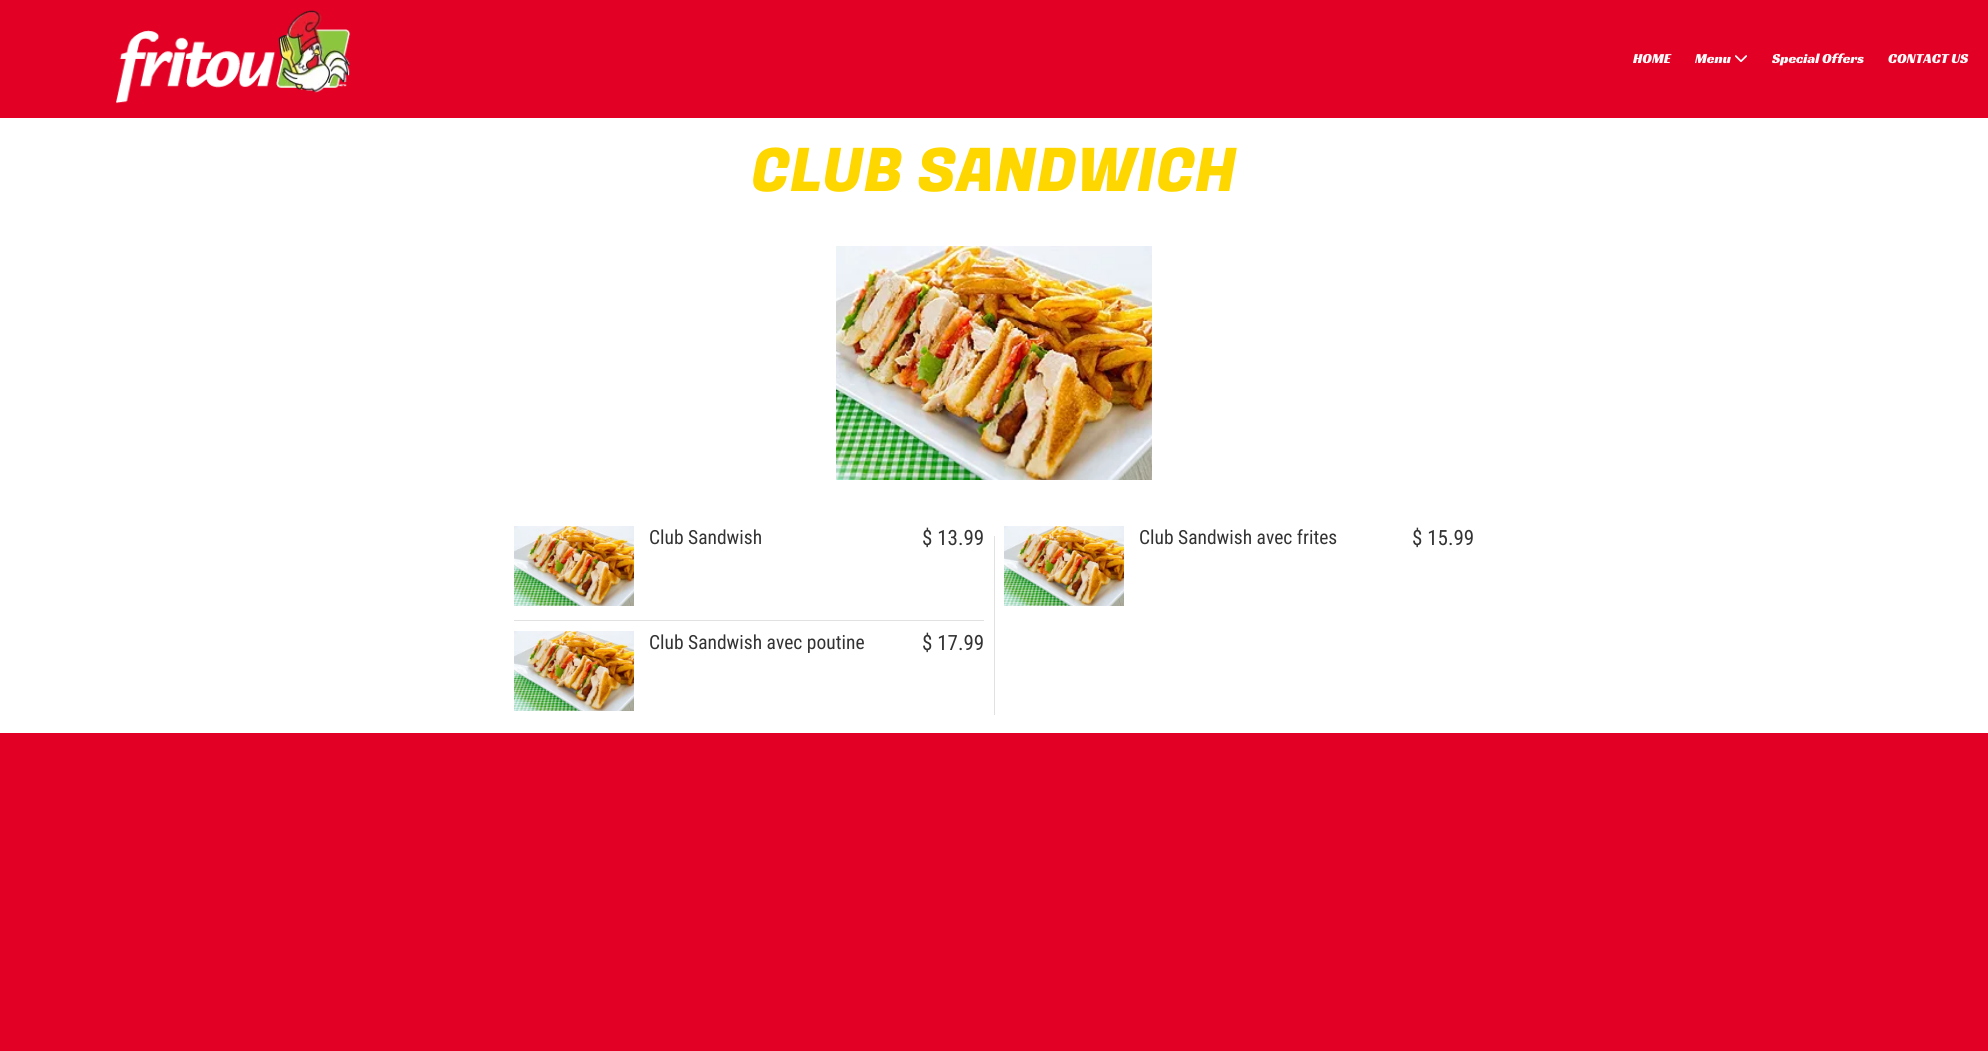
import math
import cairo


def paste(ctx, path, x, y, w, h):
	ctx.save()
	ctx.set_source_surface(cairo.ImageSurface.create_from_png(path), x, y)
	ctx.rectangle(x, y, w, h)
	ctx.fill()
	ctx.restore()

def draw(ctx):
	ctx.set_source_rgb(0.886, 0, 0.145)
	ctx.paint()
	paste(ctx, 'media/1.png', 116, 10, 235, 94)
	ctx.select_font_face('Racing Sans One')
	ctx.set_font_size(14)
	ctx.set_source_rgb(0.98, 0.98, 0.98)
	ctx.move_to(1633, 63)
	ctx.show_text('HOME')
	ctx.move_to(1695, 63)
	ctx.show_text('Menu')
	paste(ctx, 'media/2.png', 1735, 55, 12, 7)
	ctx.move_to(1772, 63)
	ctx.show_text('Special Offers')
	ctx.move_to(1888, 63)
	ctx.show_text('CONTACT US')
	ctx.set_source_rgb(1, 1, 1)
	ctx.rectangle(0, 118, 1988, 615)
	ctx.fill()
	ctx.select_font_face('Fugaz One')
	ctx.set_font_size(60)
	ctx.set_source_rgb(1, 0.843, 0)
	ctx.move_to(751, 191)
	ctx.show_text('CLUB SANDWICH')
	paste(ctx, 'media/3.png', 836, 246, 316, 234)
	paste(ctx, 'media/4.png', 514, 526, 120, 80)
	ctx.select_font_face('Roboto Condensed')
	ctx.set_font_size(19.5)
	ctx.set_source_rgb(0.2, 0.2, 0.2)
	ctx.move_to(649, 544)
	ctx.show_text('Club Sandwish')
	ctx.set_font_size(21)
	ctx.move_to(922, 545)
	ctx.show_text('$ 13.99')
	ctx.set_source_rgb(0.882, 0.882, 0.882)
	ctx.rectangle(994, 536, 1, 179)
	ctx.fill()
	paste(ctx, 'media/4.png', 1004, 526, 120, 80)
	ctx.set_font_size(19.5)
	ctx.set_source_rgb(0.2, 0.2, 0.2)
	ctx.move_to(1139, 544)
	ctx.show_text('Club Sandwish avec frites')
	ctx.set_font_size(21)
	ctx.move_to(1412, 545)
	ctx.show_text('$ 15.99')
	ctx.set_source_rgb(0.882, 0.882, 0.882)
	ctx.rectangle(514, 620, 470, 1)
	ctx.fill()
	paste(ctx, 'media/4.png', 514, 631, 120, 80)
	ctx.set_font_size(19.5)
	ctx.set_source_rgb(0.2, 0.2, 0.2)
	ctx.move_to(649, 649)
	ctx.show_text('Club Sandwish avec poutine')
	ctx.set_font_size(21)
	ctx.move_to(922, 650)
	ctx.show_text('$ 17.99')


surface = cairo.ImageSurface(cairo.FORMAT_RGB24, 1988, 1051)
ctx = cairo.Context(surface)
options = cairo.FontOptions()
options.set_hint_metrics(cairo.HINT_METRICS_OFF)
options.set_hint_style(cairo.HINT_STYLE_NONE)
ctx.set_font_options(options)
ctx.set_miter_limit(4)
draw(ctx)
surface.write_to_png('image.png')
